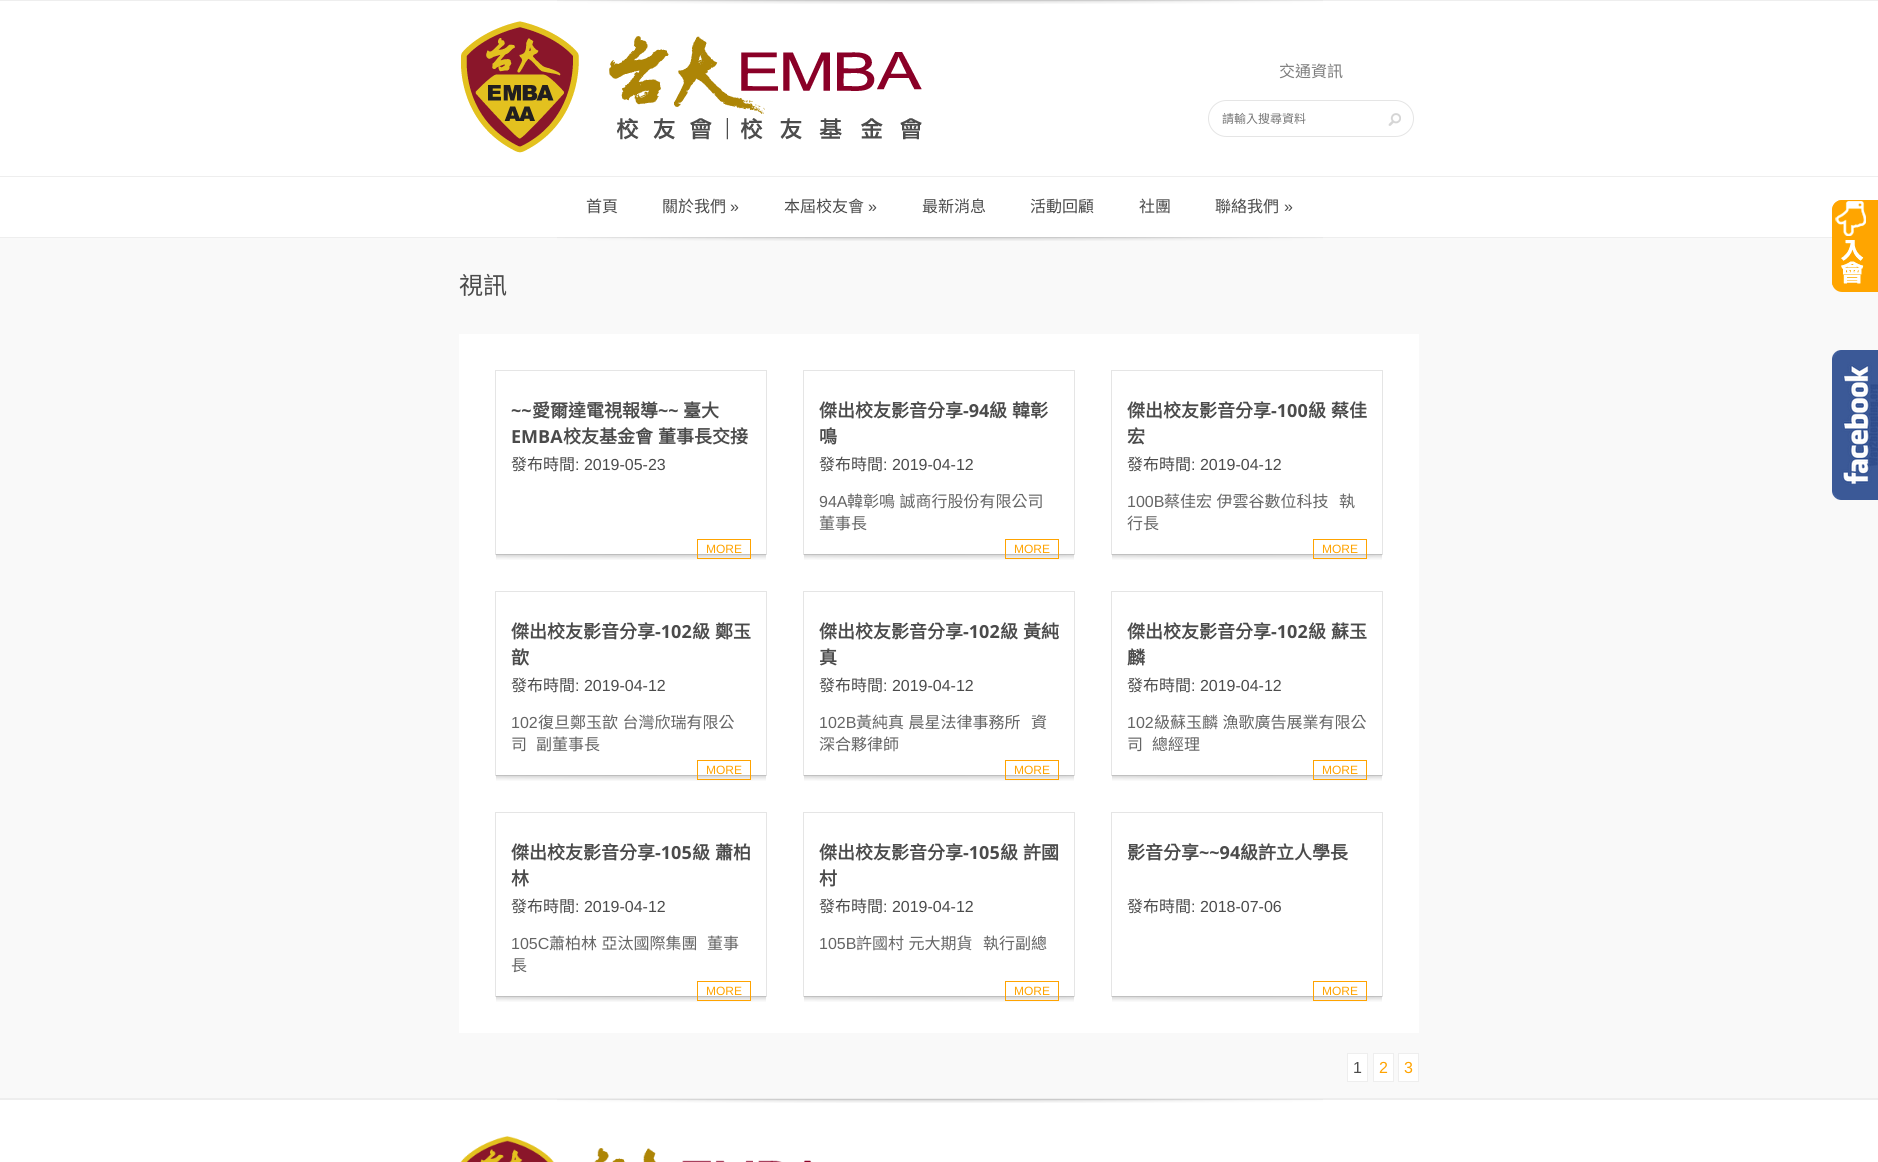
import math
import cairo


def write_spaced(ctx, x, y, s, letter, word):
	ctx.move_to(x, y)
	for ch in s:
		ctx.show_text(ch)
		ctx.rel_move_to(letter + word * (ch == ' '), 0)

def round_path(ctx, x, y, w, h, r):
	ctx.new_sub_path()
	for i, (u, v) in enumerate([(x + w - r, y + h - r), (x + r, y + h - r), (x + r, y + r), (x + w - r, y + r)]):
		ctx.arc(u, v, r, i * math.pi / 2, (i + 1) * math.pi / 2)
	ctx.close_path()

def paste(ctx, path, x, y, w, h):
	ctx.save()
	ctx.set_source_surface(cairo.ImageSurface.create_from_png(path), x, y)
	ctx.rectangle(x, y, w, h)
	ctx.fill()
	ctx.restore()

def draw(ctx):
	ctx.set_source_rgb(1, 1, 1)
	ctx.paint()
	ctx.set_source_rgb(0.933, 0.933, 0.933)
	ctx.rectangle(0, 0, 1878, 1)
	ctx.fill()
	paste(ctx, 'media/1.png', 557, 0, 766, 4)
	paste(ctx, 'media/2.png', 461, 21, 461, 132)
	ctx.select_font_face('Noto Sans CJK TC')
	ctx.set_font_size(16)
	ctx.set_source_rgb(0.49, 0.49, 0.49)
	ctx.move_to(1279, 77)
	ctx.show_text('交通資訊')
	round_path(ctx, 1208.5, 100.5, 205, 36, 18)
	ctx.set_source_rgb(0.898, 0.898, 0.898)
	ctx.set_line_width(1)
	ctx.stroke()
	ctx.set_font_size(12)
	ctx.set_source_rgb(0.459, 0.459, 0.459)
	ctx.move_to(1222, 123)
	ctx.show_text('請輸入搜尋資料')
	paste(ctx, 'media/3.png', 1388, 113, 13, 13)
	ctx.set_source_rgb(0.933, 0.933, 0.933)
	ctx.rectangle(0, 176, 1878, 1)
	ctx.fill()
	ctx.rectangle(0, 237, 1832, 1)
	ctx.fill()
	ctx.set_font_size(16)
	ctx.set_source_rgb(0.294, 0.294, 0.294)
	ctx.move_to(586, 212)
	ctx.show_text('首頁')
	ctx.move_to(662, 212)
	ctx.show_text('關於我們')
	ctx.select_font_face('Liberation Sans')
	ctx.move_to(730, 212)
	ctx.show_text('»')
	ctx.select_font_face('Noto Sans CJK TC')
	ctx.move_to(784, 212)
	ctx.show_text('本屆校友會')
	ctx.select_font_face('Liberation Sans')
	ctx.move_to(868, 212)
	ctx.show_text('»')
	ctx.select_font_face('Noto Sans CJK TC')
	for x, y, s in [
		(922, 212, '最新消息'),
		(1030, 212, '活動回顧'),
		(1139, 212, '社團'),
		(1215, 212, '聯絡我們'),
	]:
		ctx.move_to(x, y)
		ctx.show_text(s)
	ctx.select_font_face('Liberation Sans')
	ctx.move_to(1284, 212)
	ctx.show_text('»')
	ctx.set_source_rgb(0.976, 0.976, 0.976)
	ctx.rectangle(0, 238, 1878, 860)
	ctx.fill()
	paste(ctx, 'media/4.png', 557, 237, 766, 4)
	ctx.set_source_rgb(1, 0.647, 0)
	ctx.new_path()
	ctx.move_to(1842, 200)
	ctx.line_to(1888, 200)
	ctx.line_to(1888, 292)
	ctx.line_to(1842, 292)
	ctx.curve_to(1836.5, 292, 1832, 287.5, 1832, 282)
	ctx.line_to(1832, 210)
	ctx.curve_to(1832, 204.5, 1836.5, 200, 1842, 200)
	ctx.close_path()
	ctx.fill()
	paste(ctx, 'media/5.png', 1832, 200, 34, 85)
	ctx.set_source_rgb(0.933, 0.933, 0.933)
	ctx.rectangle(0, 1098, 1878, 2)
	ctx.fill()
	ctx.select_font_face('Noto Sans CJK TC')
	ctx.set_font_size(24)
	ctx.set_source_rgb(0.294, 0.294, 0.294)
	ctx.move_to(459, 294)
	ctx.show_text('視訊')
	ctx.set_source_rgb(1, 1, 1)
	ctx.rectangle(459, 334, 960, 699)
	ctx.fill()
	ctx.rectangle(495.5, 370.5, 271, 184)
	ctx.set_source_rgb(0.898, 0.898, 0.898)
	ctx.stroke()
	ctx.select_font_face('Open Sans', cairo.FONT_SLANT_NORMAL, cairo.FONT_WEIGHT_BOLD)
	ctx.set_font_size(18)
	ctx.set_source_rgb(0.294, 0.294, 0.294)
	ctx.move_to(511, 417)
	ctx.show_text('~~')
	ctx.select_font_face('Noto Sans CJK TC', cairo.FONT_SLANT_NORMAL, cairo.FONT_WEIGHT_BOLD)
	ctx.move_to(532, 417)
	ctx.show_text('愛爾達電視報導')
	ctx.select_font_face('Open Sans', cairo.FONT_SLANT_NORMAL, cairo.FONT_WEIGHT_BOLD)
	ctx.move_to(658, 417)
	ctx.show_text('~~')
	ctx.select_font_face('Noto Sans CJK TC', cairo.FONT_SLANT_NORMAL, cairo.FONT_WEIGHT_BOLD)
	ctx.move_to(683, 417)
	ctx.show_text('臺大')
	ctx.select_font_face('Open Sans', cairo.FONT_SLANT_NORMAL, cairo.FONT_WEIGHT_BOLD)
	ctx.move_to(511, 443)
	ctx.show_text('EMBA')
	ctx.select_font_face('Noto Sans CJK TC', cairo.FONT_SLANT_NORMAL, cairo.FONT_WEIGHT_BOLD)
	write_spaced(ctx, 563, 443, '校友基金會 董事長交接', 0, 1)
	ctx.select_font_face('Noto Sans CJK TC')
	ctx.set_font_size(16)
	ctx.move_to(511, 470)
	ctx.show_text('發布時間')
	ctx.select_font_face('Liberation Sans')
	ctx.move_to(575, 470)
	ctx.show_text(': 2019-05-23')
	paste(ctx, 'media/6.png', 496, 554, 270, 6)
	ctx.rectangle(697.5, 539.5, 53, 19)
	ctx.set_source_rgb(1, 0.639, 0)
	ctx.stroke()
	ctx.set_font_size(12)
	ctx.move_to(706, 553)
	ctx.show_text('MORE')
	ctx.rectangle(803.5, 370.5, 271, 184)
	ctx.set_source_rgb(0.898, 0.898, 0.898)
	ctx.stroke()
	ctx.select_font_face('Noto Sans CJK TC', cairo.FONT_SLANT_NORMAL, cairo.FONT_WEIGHT_BOLD)
	ctx.set_font_size(18)
	ctx.set_source_rgb(0.294, 0.294, 0.294)
	ctx.move_to(819, 417)
	ctx.show_text('傑出校友影音分享')
	ctx.select_font_face('Open Sans', cairo.FONT_SLANT_NORMAL, cairo.FONT_WEIGHT_BOLD)
	ctx.move_to(963, 417)
	ctx.show_text('-94')
	ctx.select_font_face('Noto Sans CJK TC', cairo.FONT_SLANT_NORMAL, cairo.FONT_WEIGHT_BOLD)
	write_spaced(ctx, 989, 417, '級 韓彰', 0, 1)
	ctx.move_to(819, 443)
	ctx.show_text('鳴')
	ctx.select_font_face('Noto Sans CJK TC')
	ctx.set_font_size(16)
	ctx.move_to(819, 470)
	ctx.show_text('發布時間')
	ctx.select_font_face('Liberation Sans')
	ctx.move_to(883, 470)
	ctx.show_text(': 2019-04-12')
	ctx.set_source_rgb(0.396, 0.396, 0.396)
	ctx.move_to(819, 507)
	ctx.show_text('94A')
	ctx.select_font_face('Noto Sans CJK TC')
	write_spaced(ctx, 847, 507, '韓彰鳴 誠商行股份有限公司', 0, 1)
	ctx.move_to(819, 529)
	ctx.show_text('董事長')
	paste(ctx, 'media/6.png', 804, 554, 270, 6)
	ctx.rectangle(1005.5, 539.5, 53, 19)
	ctx.set_source_rgb(1, 0.639, 0)
	ctx.stroke()
	ctx.select_font_face('Liberation Sans')
	ctx.set_font_size(12)
	ctx.move_to(1014, 553)
	ctx.show_text('MORE')
	ctx.rectangle(1111.5, 370.5, 271, 184)
	ctx.set_source_rgb(0.898, 0.898, 0.898)
	ctx.stroke()
	ctx.select_font_face('Noto Sans CJK TC', cairo.FONT_SLANT_NORMAL, cairo.FONT_WEIGHT_BOLD)
	ctx.set_font_size(18)
	ctx.set_source_rgb(0.294, 0.294, 0.294)
	ctx.move_to(1127, 417)
	ctx.show_text('傑出校友影音分享')
	ctx.select_font_face('Open Sans', cairo.FONT_SLANT_NORMAL, cairo.FONT_WEIGHT_BOLD)
	ctx.move_to(1271, 417)
	ctx.show_text('-100')
	ctx.select_font_face('Noto Sans CJK TC', cairo.FONT_SLANT_NORMAL, cairo.FONT_WEIGHT_BOLD)
	write_spaced(ctx, 1308, 417, '級 蔡佳', 0, 1)
	ctx.move_to(1127, 443)
	ctx.show_text('宏')
	ctx.select_font_face('Noto Sans CJK TC')
	ctx.set_font_size(16)
	ctx.move_to(1127, 470)
	ctx.show_text('發布時間')
	ctx.select_font_face('Liberation Sans')
	ctx.move_to(1191, 470)
	ctx.show_text(': 2019-04-12')
	ctx.set_source_rgb(0.396, 0.396, 0.396)
	ctx.move_to(1127, 507)
	ctx.show_text('100B')
	ctx.select_font_face('Noto Sans CJK TC')
	write_spaced(ctx, 1164, 507, '蔡佳宏 伊雲谷數位科技', 0, 1)
	ctx.move_to(1339, 507)
	ctx.show_text('執')
	ctx.move_to(1127, 529)
	ctx.show_text('行長')
	paste(ctx, 'media/6.png', 1112, 554, 270, 6)
	ctx.rectangle(1313.5, 539.5, 53, 19)
	ctx.set_source_rgb(1, 0.639, 0)
	ctx.stroke()
	ctx.select_font_face('Liberation Sans')
	ctx.set_font_size(12)
	ctx.move_to(1322, 553)
	ctx.show_text('MORE')
	ctx.rectangle(495.5, 591.5, 271, 184)
	ctx.set_source_rgb(0.898, 0.898, 0.898)
	ctx.stroke()
	ctx.select_font_face('Noto Sans CJK TC', cairo.FONT_SLANT_NORMAL, cairo.FONT_WEIGHT_BOLD)
	ctx.set_font_size(18)
	ctx.set_source_rgb(0.294, 0.294, 0.294)
	ctx.move_to(511, 638)
	ctx.show_text('傑出校友影音分享')
	ctx.select_font_face('Open Sans', cairo.FONT_SLANT_NORMAL, cairo.FONT_WEIGHT_BOLD)
	ctx.move_to(655, 638)
	ctx.show_text('-102')
	ctx.select_font_face('Noto Sans CJK TC', cairo.FONT_SLANT_NORMAL, cairo.FONT_WEIGHT_BOLD)
	write_spaced(ctx, 692, 638, '級 鄭玉', 0, 1)
	ctx.move_to(511, 664)
	ctx.show_text('歆')
	ctx.select_font_face('Noto Sans CJK TC')
	ctx.set_font_size(16)
	ctx.move_to(511, 691)
	ctx.show_text('發布時間')
	ctx.select_font_face('Liberation Sans')
	ctx.move_to(575, 691)
	ctx.show_text(': 2019-04-12')
	ctx.set_source_rgb(0.396, 0.396, 0.396)
	ctx.move_to(511, 728)
	ctx.show_text('102')
	ctx.select_font_face('Noto Sans CJK TC')
	write_spaced(ctx, 538, 728, '復旦鄭玉歆 台灣欣瑞有限公', 0, 1)
	ctx.move_to(511, 750)
	ctx.show_text('司')
	ctx.move_to(536, 750)
	ctx.show_text('副董事長')
	paste(ctx, 'media/6.png', 496, 775, 270, 6)
	ctx.rectangle(697.5, 760.5, 53, 19)
	ctx.set_source_rgb(1, 0.639, 0)
	ctx.stroke()
	ctx.select_font_face('Liberation Sans')
	ctx.set_font_size(12)
	ctx.move_to(706, 774)
	ctx.show_text('MORE')
	ctx.rectangle(803.5, 591.5, 271, 184)
	ctx.set_source_rgb(0.898, 0.898, 0.898)
	ctx.stroke()
	ctx.select_font_face('Noto Sans CJK TC', cairo.FONT_SLANT_NORMAL, cairo.FONT_WEIGHT_BOLD)
	ctx.set_font_size(18)
	ctx.set_source_rgb(0.294, 0.294, 0.294)
	ctx.move_to(819, 638)
	ctx.show_text('傑出校友影音分享')
	ctx.select_font_face('Open Sans', cairo.FONT_SLANT_NORMAL, cairo.FONT_WEIGHT_BOLD)
	ctx.move_to(963, 638)
	ctx.show_text('-102')
	ctx.select_font_face('Noto Sans CJK TC', cairo.FONT_SLANT_NORMAL, cairo.FONT_WEIGHT_BOLD)
	write_spaced(ctx, 1000, 638, '級 黃純', 0, 1)
	ctx.move_to(819, 664)
	ctx.show_text('真')
	ctx.select_font_face('Noto Sans CJK TC')
	ctx.set_font_size(16)
	ctx.move_to(819, 691)
	ctx.show_text('發布時間')
	ctx.select_font_face('Liberation Sans')
	ctx.move_to(883, 691)
	ctx.show_text(': 2019-04-12')
	ctx.set_source_rgb(0.396, 0.396, 0.396)
	ctx.move_to(819, 728)
	ctx.show_text('102B')
	ctx.select_font_face('Noto Sans CJK TC')
	write_spaced(ctx, 856, 728, '黃純真 晨星法律事務所', 0, 1)
	ctx.move_to(1031, 728)
	ctx.show_text('資')
	ctx.move_to(819, 750)
	ctx.show_text('深合夥律師')
	paste(ctx, 'media/6.png', 804, 775, 270, 6)
	ctx.rectangle(1005.5, 760.5, 53, 19)
	ctx.set_source_rgb(1, 0.639, 0)
	ctx.stroke()
	ctx.select_font_face('Liberation Sans')
	ctx.set_font_size(12)
	ctx.move_to(1014, 774)
	ctx.show_text('MORE')
	ctx.rectangle(1111.5, 591.5, 271, 184)
	ctx.set_source_rgb(0.898, 0.898, 0.898)
	ctx.stroke()
	ctx.select_font_face('Noto Sans CJK TC', cairo.FONT_SLANT_NORMAL, cairo.FONT_WEIGHT_BOLD)
	ctx.set_font_size(18)
	ctx.set_source_rgb(0.294, 0.294, 0.294)
	ctx.move_to(1127, 638)
	ctx.show_text('傑出校友影音分享')
	ctx.select_font_face('Open Sans', cairo.FONT_SLANT_NORMAL, cairo.FONT_WEIGHT_BOLD)
	ctx.move_to(1271, 638)
	ctx.show_text('-102')
	ctx.select_font_face('Noto Sans CJK TC', cairo.FONT_SLANT_NORMAL, cairo.FONT_WEIGHT_BOLD)
	write_spaced(ctx, 1308, 638, '級 蘇玉', 0, 1)
	ctx.move_to(1127, 664)
	ctx.show_text('麟')
	ctx.select_font_face('Noto Sans CJK TC')
	ctx.set_font_size(16)
	ctx.move_to(1127, 691)
	ctx.show_text('發布時間')
	ctx.select_font_face('Liberation Sans')
	ctx.move_to(1191, 691)
	ctx.show_text(': 2019-04-12')
	ctx.set_source_rgb(0.396, 0.396, 0.396)
	ctx.move_to(1127, 728)
	ctx.show_text('102')
	ctx.select_font_face('Noto Sans CJK TC')
	write_spaced(ctx, 1154, 728, '級蘇玉麟 漁歌廣告展業有限公', 0, 1)
	ctx.move_to(1127, 750)
	ctx.show_text('司')
	ctx.move_to(1152, 750)
	ctx.show_text('總經理')
	paste(ctx, 'media/6.png', 1112, 775, 270, 6)
	ctx.rectangle(1313.5, 760.5, 53, 19)
	ctx.set_source_rgb(1, 0.639, 0)
	ctx.stroke()
	ctx.select_font_face('Liberation Sans')
	ctx.set_font_size(12)
	ctx.move_to(1322, 774)
	ctx.show_text('MORE')
	ctx.rectangle(495.5, 812.5, 271, 184)
	ctx.set_source_rgb(0.898, 0.898, 0.898)
	ctx.stroke()
	ctx.select_font_face('Noto Sans CJK TC', cairo.FONT_SLANT_NORMAL, cairo.FONT_WEIGHT_BOLD)
	ctx.set_font_size(18)
	ctx.set_source_rgb(0.294, 0.294, 0.294)
	ctx.move_to(511, 859)
	ctx.show_text('傑出校友影音分享')
	ctx.select_font_face('Open Sans', cairo.FONT_SLANT_NORMAL, cairo.FONT_WEIGHT_BOLD)
	ctx.move_to(655, 859)
	ctx.show_text('-105')
	ctx.select_font_face('Noto Sans CJK TC', cairo.FONT_SLANT_NORMAL, cairo.FONT_WEIGHT_BOLD)
	write_spaced(ctx, 692, 859, '級 蕭柏', 0, 1)
	ctx.move_to(511, 885)
	ctx.show_text('林')
	ctx.select_font_face('Noto Sans CJK TC')
	ctx.set_font_size(16)
	ctx.move_to(511, 912)
	ctx.show_text('發布時間')
	ctx.select_font_face('Liberation Sans')
	ctx.move_to(575, 912)
	ctx.show_text(': 2019-04-12')
	ctx.set_source_rgb(0.396, 0.396, 0.396)
	ctx.move_to(511, 949)
	ctx.show_text('105C')
	ctx.select_font_face('Noto Sans CJK TC')
	write_spaced(ctx, 549, 949, '蕭柏林 亞汰國際集團', 0, 1)
	ctx.move_to(707, 949)
	ctx.show_text('董事')
	ctx.move_to(511, 971)
	ctx.show_text('長')
	paste(ctx, 'media/6.png', 496, 996, 270, 6)
	ctx.rectangle(697.5, 981.5, 53, 19)
	ctx.set_source_rgb(1, 0.639, 0)
	ctx.stroke()
	ctx.select_font_face('Liberation Sans')
	ctx.set_font_size(12)
	ctx.move_to(706, 995)
	ctx.show_text('MORE')
	ctx.rectangle(803.5, 812.5, 271, 184)
	ctx.set_source_rgb(0.898, 0.898, 0.898)
	ctx.stroke()
	ctx.select_font_face('Noto Sans CJK TC', cairo.FONT_SLANT_NORMAL, cairo.FONT_WEIGHT_BOLD)
	ctx.set_font_size(18)
	ctx.set_source_rgb(0.294, 0.294, 0.294)
	ctx.move_to(819, 859)
	ctx.show_text('傑出校友影音分享')
	ctx.select_font_face('Open Sans', cairo.FONT_SLANT_NORMAL, cairo.FONT_WEIGHT_BOLD)
	ctx.move_to(963, 859)
	ctx.show_text('-105')
	ctx.select_font_face('Noto Sans CJK TC', cairo.FONT_SLANT_NORMAL, cairo.FONT_WEIGHT_BOLD)
	write_spaced(ctx, 1000, 859, '級 許國', 0, 1)
	ctx.move_to(819, 885)
	ctx.show_text('村')
	ctx.select_font_face('Noto Sans CJK TC')
	ctx.set_font_size(16)
	ctx.move_to(819, 912)
	ctx.show_text('發布時間')
	ctx.select_font_face('Liberation Sans')
	ctx.move_to(883, 912)
	ctx.show_text(': 2019-04-12')
	ctx.set_source_rgb(0.396, 0.396, 0.396)
	ctx.move_to(819, 949)
	ctx.show_text('105B')
	ctx.select_font_face('Noto Sans CJK TC')
	write_spaced(ctx, 856, 949, '許國村 元大期貨', 0, 1)
	ctx.move_to(983, 949)
	ctx.show_text('執行副總')
	paste(ctx, 'media/6.png', 804, 996, 270, 6)
	ctx.rectangle(1005.5, 981.5, 53, 19)
	ctx.set_source_rgb(1, 0.639, 0)
	ctx.stroke()
	ctx.select_font_face('Liberation Sans')
	ctx.set_font_size(12)
	ctx.move_to(1014, 995)
	ctx.show_text('MORE')
	ctx.rectangle(1111.5, 812.5, 271, 184)
	ctx.set_source_rgb(0.898, 0.898, 0.898)
	ctx.stroke()
	ctx.select_font_face('Noto Sans CJK TC', cairo.FONT_SLANT_NORMAL, cairo.FONT_WEIGHT_BOLD)
	ctx.set_font_size(18)
	ctx.set_source_rgb(0.294, 0.294, 0.294)
	ctx.move_to(1127, 859)
	ctx.show_text('影音分享')
	ctx.select_font_face('Open Sans', cairo.FONT_SLANT_NORMAL, cairo.FONT_WEIGHT_BOLD)
	ctx.move_to(1199, 859)
	ctx.show_text('~~94')
	ctx.select_font_face('Noto Sans CJK TC', cairo.FONT_SLANT_NORMAL, cairo.FONT_WEIGHT_BOLD)
	ctx.move_to(1240, 859)
	ctx.show_text('級許立人學長')
	ctx.select_font_face('Noto Sans CJK TC')
	ctx.set_font_size(16)
	ctx.move_to(1127, 912)
	ctx.show_text('發布時間')
	ctx.select_font_face('Liberation Sans')
	ctx.move_to(1191, 912)
	ctx.show_text(': 2018-07-06')
	paste(ctx, 'media/6.png', 1112, 996, 270, 6)
	ctx.rectangle(1313.5, 981.5, 53, 19)
	ctx.set_source_rgb(1, 0.639, 0)
	ctx.stroke()
	ctx.set_font_size(12)
	ctx.move_to(1322, 995)
	ctx.show_text('MORE')
	ctx.set_source_rgb(1, 1, 1)
	ctx.rectangle(1347.5, 1053.5, 20, 28)
	ctx.fill_preserve()
	ctx.set_source_rgb(0.933, 0.933, 0.933)
	ctx.stroke()
	ctx.set_font_size(16)
	ctx.set_source_rgb(0.294, 0.294, 0.294)
	ctx.move_to(1353, 1073)
	ctx.show_text('1')
	ctx.set_source_rgb(1, 1, 1)
	ctx.rectangle(1373.5, 1053.5, 20, 28)
	ctx.fill_preserve()
	ctx.set_source_rgb(0.933, 0.933, 0.933)
	ctx.stroke()
	ctx.set_source_rgb(1, 0.639, 0)
	ctx.move_to(1379, 1073)
	ctx.show_text('2')
	ctx.set_source_rgb(1, 1, 1)
	ctx.rectangle(1398.5, 1053.5, 20, 28)
	ctx.fill_preserve()
	ctx.set_source_rgb(0.933, 0.933, 0.933)
	ctx.stroke()
	ctx.set_source_rgb(1, 0.639, 0)
	ctx.move_to(1404, 1073)
	ctx.show_text('3')
	paste(ctx, 'media/7.png', 1832, 350, 46, 150)
	paste(ctx, 'media/1.png', 557, 1099, 766, 4)
	paste(ctx, 'media/8.png', 460, 1136, 352, 26)


surface = cairo.ImageSurface(cairo.FORMAT_RGB24, 1878, 1162)
ctx = cairo.Context(surface)
options = cairo.FontOptions()
options.set_hint_metrics(cairo.HINT_METRICS_OFF)
options.set_hint_style(cairo.HINT_STYLE_NONE)
ctx.set_font_options(options)
ctx.set_miter_limit(4)
draw(ctx)
surface.write_to_png('image.png')
